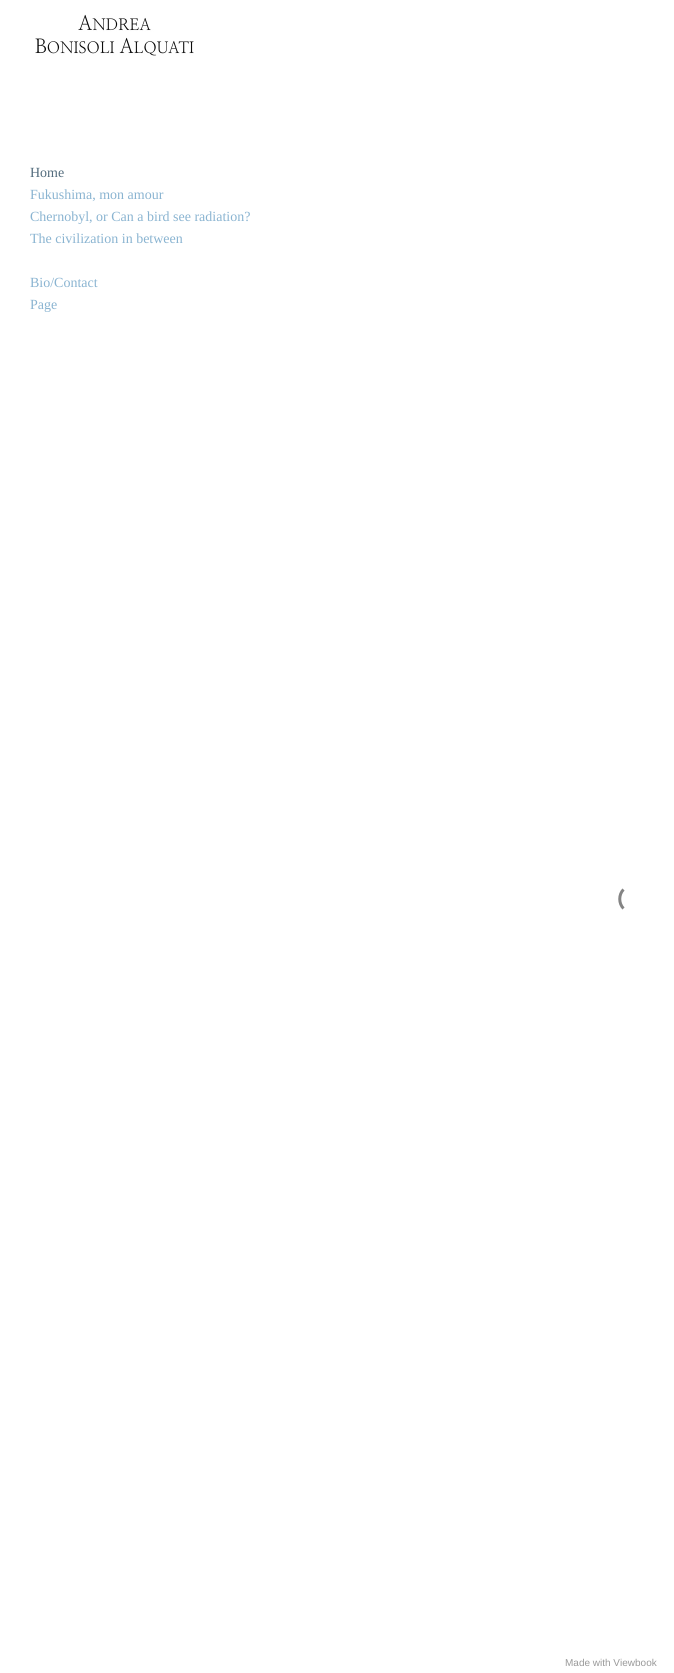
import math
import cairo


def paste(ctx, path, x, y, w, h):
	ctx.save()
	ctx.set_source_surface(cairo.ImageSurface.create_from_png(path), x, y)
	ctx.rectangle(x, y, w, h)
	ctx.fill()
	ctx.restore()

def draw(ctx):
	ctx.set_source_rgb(1, 1, 1)
	ctx.paint()
	paste(ctx, 'media/1.png', 35, 14, 159, 42)
	ctx.select_font_face('Liberation Serif')
	ctx.set_font_size(14)
	ctx.set_source_rgb(0.325, 0.424, 0.49)
	ctx.move_to(30, 177)
	ctx.show_text('Home')
	ctx.set_source_rgb(0.541, 0.706, 0.82)
	for x, y, s in [
		(30, 199, 'Fukushima, mon amour'),
		(30, 221, 'Chernobyl, or Can a bird see radiation?'),
		(30, 243, 'The civilization in between'),
		(30, 287, 'Bio/Contact'),
		(30, 309, 'Page'),
	]:
		ctx.move_to(x, y)
		ctx.show_text(s)
	ctx.new_path()
	ctx.move_to(623.5, 908.5)
	ctx.curve_to(618.5, 903.5, 618.5, 894.5, 623.5, 889.5)
	ctx.set_source_rgb(0.518, 0.518, 0.518)
	ctx.set_line_width(3)
	ctx.stroke()
	ctx.select_font_face('Liberation Sans')
	ctx.set_font_size(10)
	ctx.set_source_rgb(0.6, 0.6, 0.6)
	ctx.move_to(565, 1666)
	ctx.show_text('Made with Viewbook')


surface = cairo.ImageSurface(cairo.FORMAT_RGB24, 674, 1673)
ctx = cairo.Context(surface)
options = cairo.FontOptions()
options.set_hint_metrics(cairo.HINT_METRICS_OFF)
options.set_hint_style(cairo.HINT_STYLE_NONE)
ctx.set_font_options(options)
ctx.set_miter_limit(4)
draw(ctx)
surface.write_to_png('image.png')
